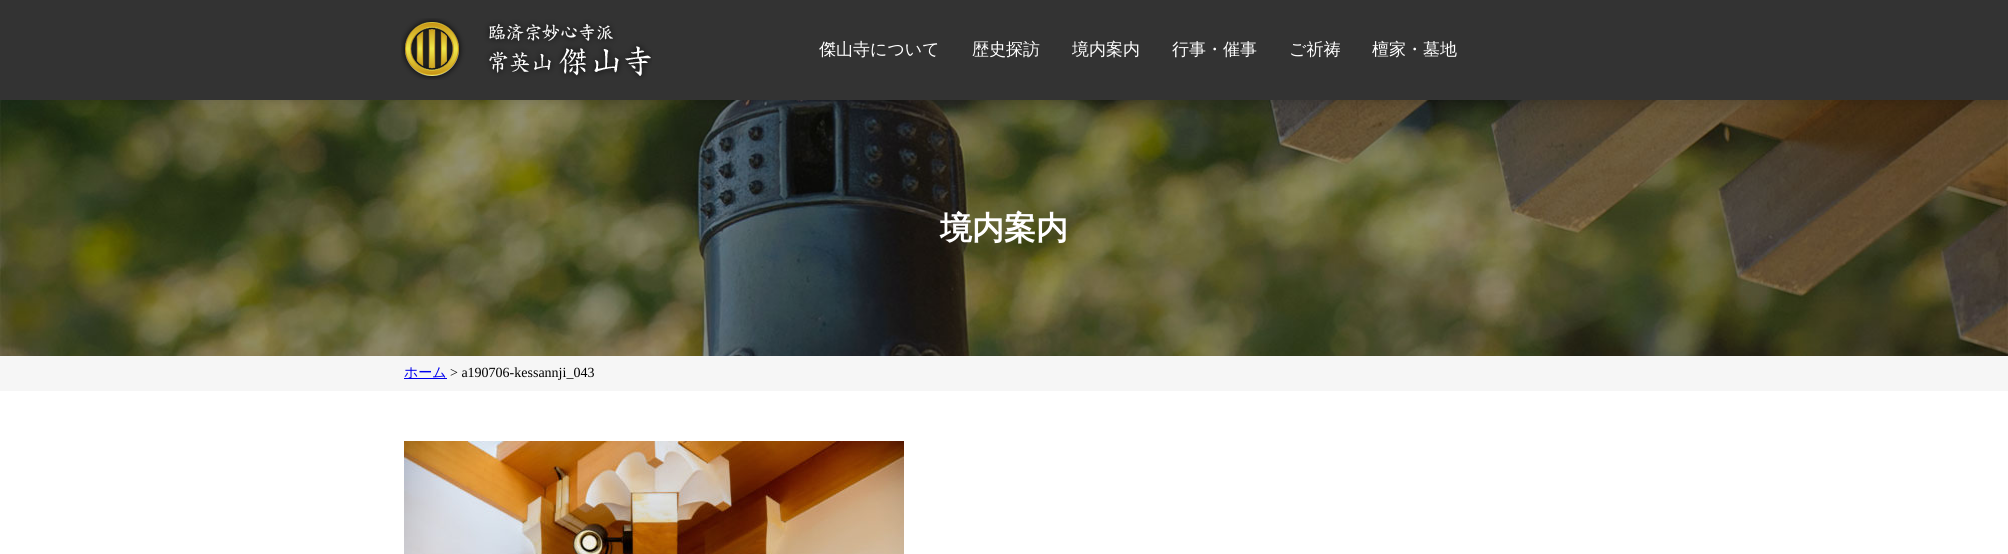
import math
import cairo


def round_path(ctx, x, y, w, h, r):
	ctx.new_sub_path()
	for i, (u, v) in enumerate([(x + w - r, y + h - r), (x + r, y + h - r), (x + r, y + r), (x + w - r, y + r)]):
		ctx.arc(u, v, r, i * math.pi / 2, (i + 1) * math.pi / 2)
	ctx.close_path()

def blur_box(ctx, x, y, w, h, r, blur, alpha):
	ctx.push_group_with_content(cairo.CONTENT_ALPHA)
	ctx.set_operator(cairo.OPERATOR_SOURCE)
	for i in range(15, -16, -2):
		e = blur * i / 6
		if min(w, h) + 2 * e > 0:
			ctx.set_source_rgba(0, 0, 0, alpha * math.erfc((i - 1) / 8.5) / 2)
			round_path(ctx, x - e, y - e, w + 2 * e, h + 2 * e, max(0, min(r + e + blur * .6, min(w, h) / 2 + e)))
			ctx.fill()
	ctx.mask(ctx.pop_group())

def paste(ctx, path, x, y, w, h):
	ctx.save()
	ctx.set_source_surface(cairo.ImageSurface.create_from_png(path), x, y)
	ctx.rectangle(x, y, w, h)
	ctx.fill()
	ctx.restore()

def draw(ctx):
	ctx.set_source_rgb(1, 1, 1)
	ctx.paint()
	paste(ctx, 'media/2.png', 0, 100, 2008, 256)
	ctx.set_source_rgb(0, 0, 0)
	blur_box(ctx, 0, 3, 2008, 100, 0, 7.5, 0.2)
	ctx.set_source_rgb(0.2, 0.2, 0.2)
	ctx.rectangle(0, 0, 2008, 100)
	ctx.fill()
	paste(ctx, 'media/1.png', 401, 18, 251, 62)
	ctx.select_font_face('WenQuanYi Zen Hei Medium')
	ctx.set_font_size(17)
	ctx.set_source_rgb(1, 1, 1)
	for x, y, s in [
		(819, 55, '傑山寺について'),
		(972, 55, '歴史探訪'),
		(1072, 55, '境内案内'),
		(1172, 55, '行事・催事'),
		(1289, 55, 'ご祈祷'),
		(1372, 55, '檀家・墓地'),
	]:
		ctx.move_to(x, y)
		ctx.show_text(s)
	ctx.select_font_face('WenQuanYi Zen Hei', cairo.FONT_SLANT_NORMAL, cairo.FONT_WEIGHT_BOLD)
	ctx.set_font_size(32)
	ctx.move_to(940, 239)
	ctx.show_text('境内案内')
	ctx.set_source_rgb(0.961, 0.961, 0.961)
	ctx.rectangle(0, 356, 2008, 35)
	ctx.fill()
	ctx.set_source_rgb(0, 0, 0.933)
	ctx.rectangle(404, 378, 43, 1)
	ctx.fill()
	ctx.select_font_face('WenQuanYi Zen Hei Medium')
	ctx.set_font_size(14)
	ctx.move_to(404, 377)
	ctx.show_text('ホーム')
	ctx.select_font_face('Liberation Serif')
	ctx.set_source_rgb(0, 0, 0)
	ctx.move_to(450, 377)
	ctx.show_text('> a190706-kessannji_043')
	paste(ctx, 'media/3.png', 404, 441, 500, 113)


surface = cairo.ImageSurface(cairo.FORMAT_RGB24, 2008, 554)
ctx = cairo.Context(surface)
options = cairo.FontOptions()
options.set_hint_metrics(cairo.HINT_METRICS_OFF)
options.set_hint_style(cairo.HINT_STYLE_NONE)
ctx.set_font_options(options)
ctx.set_miter_limit(4)
draw(ctx)
surface.write_to_png('image.png')
